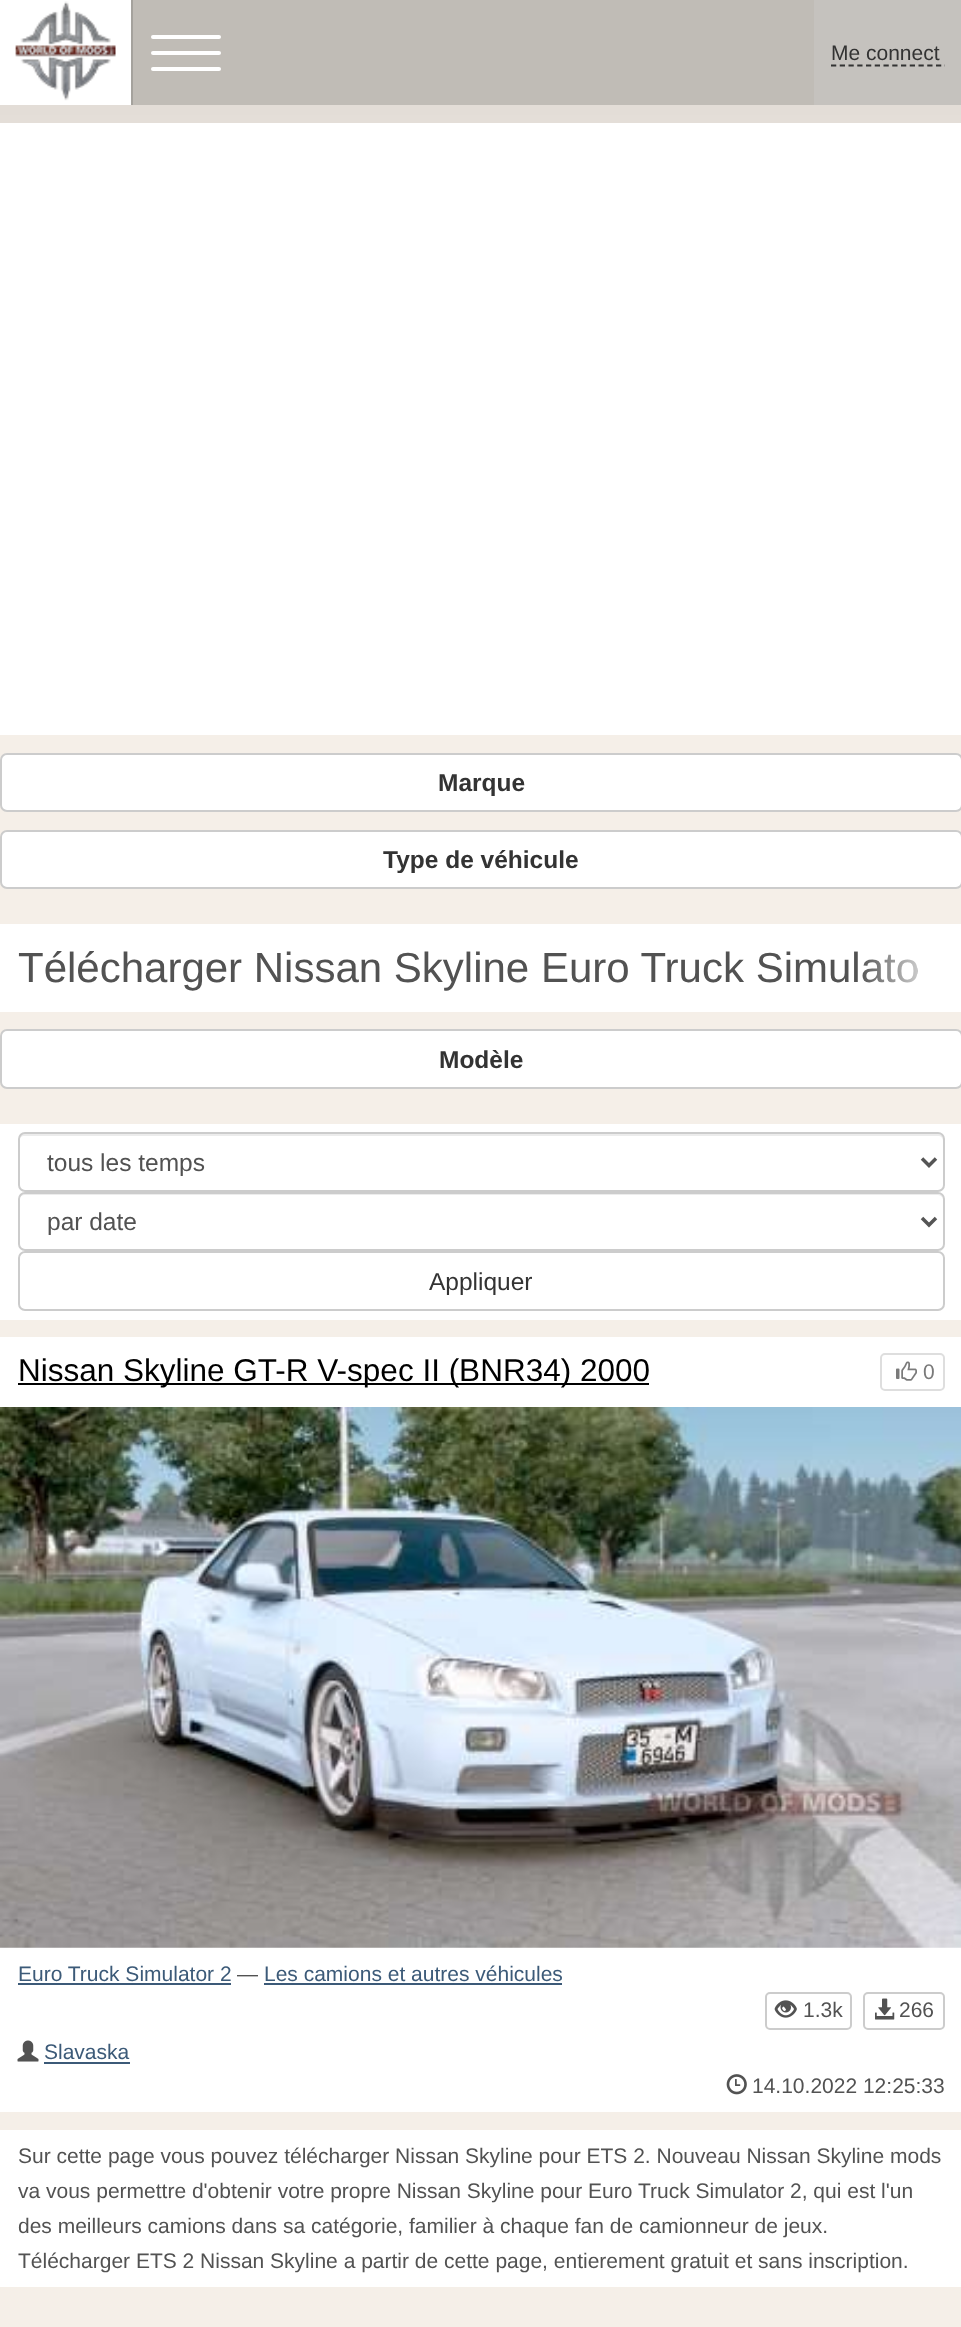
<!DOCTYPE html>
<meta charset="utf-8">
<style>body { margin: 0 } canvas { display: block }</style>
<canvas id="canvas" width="961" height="2327"></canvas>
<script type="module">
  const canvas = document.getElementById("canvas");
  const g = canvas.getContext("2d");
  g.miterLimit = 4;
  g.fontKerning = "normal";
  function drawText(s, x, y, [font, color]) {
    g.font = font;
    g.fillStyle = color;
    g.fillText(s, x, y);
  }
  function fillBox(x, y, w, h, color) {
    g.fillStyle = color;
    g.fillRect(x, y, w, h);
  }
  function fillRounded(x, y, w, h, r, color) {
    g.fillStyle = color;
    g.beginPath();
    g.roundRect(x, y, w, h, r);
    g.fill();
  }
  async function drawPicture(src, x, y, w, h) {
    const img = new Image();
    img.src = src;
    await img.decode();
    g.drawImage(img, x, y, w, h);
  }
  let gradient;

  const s1 = ["21px Liberation Sans", "#333333"];
  const s2 = ["bold 24.5px Liberation Sans", "#333333"];
  const s3 = ["42px Liberation Sans", "#525252"];
  const s4 = ["24.5px Liberation Sans", "#525252"];
  const s5 = ["24.5px Liberation Sans", "#333333"];
  const s6 = ["31.5px Liberation Sans", "#000000"];
  const s7 = ["21px Liberation Sans", "#7A7A7A"];
  const s8 = ["21px Liberation Sans", "#3C5A78"];
  const s9 = ["21px Liberation Sans", "#525252"];

  fillBox(0, 0, 961, 2327, "#F5EFE8");
  await drawPicture("pic1.png", 0, 105, 961, 18);
  fillBox(0, 0, 131, 105, "#FFFFFF");
  fillBox(131, 0, 2, 105, "#A5A29D");
  await drawPicture("pic2.png", 15, 1, 101, 100);
  fillBox(133, 0, 681, 105, "#C0BCB6");
  fillRounded(151, 35, 70, 4, 2, "#FFFFFF");
  fillRounded(151, 51, 70, 4, 2, "#FFFFFF");
  fillRounded(151, 67, 70, 4, 2, "#FFFFFF");
  fillBox(814, 0, 147, 105, "#C5C2BE");
  drawText("Me connect", 831, 60, s1);
  g.save();
  g.beginPath();
  g.rect(831, 18, 114, 70);
  g.clip();
  g.beginPath();
  g.moveTo(831, 65.5);
  g.lineTo(959, 65.5);
  g.strokeStyle = "#333333";
  g.lineWidth = 1.8;
  g.setLineDash([5.25, 3.5]);
  g.stroke();
  g.restore();
  fillBox(0, 123, 961, 612, "#FFFFFF");
  g.beginPath();
  g.roundRect(1, 754, 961, 57, 6);
  g.fill();
  g.strokeStyle = "#CCCCCC";
  g.lineWidth = 2;
  g.stroke();
  drawText("Marque", 438, 791, s2);
  g.fillStyle = "#FFFFFF";
  g.beginPath();
  g.roundRect(1, 831, 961, 57, 6);
  g.fill();
  g.stroke();
  drawText("Type de véhicule", 383, 868, s2);
  fillBox(0, 924, 961, 88, "#FFFFFF");
  drawText("Télécharger Nissan Skyline Euro Truck Simulato", 18, 982, s3);
  gradient = g.createLinearGradient(858, 968, 945, 968);
  gradient.addColorStop(0, "rgba(255, 255, 255, 0)");
  gradient.addColorStop(1, "#FFFFFF");
  g.fillStyle = gradient;
  g.fillRect(862, 954, 55, 29);
  g.fillStyle = "#FFFFFF";
  g.beginPath();
  g.roundRect(1, 1030, 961, 58, 6);
  g.fill();
  g.stroke();
  drawText("Modèle", 439, 1068, s2);
  fillBox(0, 1124, 961, 196, "#FFFFFF");
  g.fillStyle = "#ECECEC";
  g.beginPath();
  g.moveTo(24, 1136);
  g.lineTo(938, 1136);
  g.bezierCurveTo(941, 1136, 943, 1138, 943, 1141);
  g.lineTo(943, 1139);
  g.bezierCurveTo(943, 1136, 941, 1134, 938, 1134);
  g.lineTo(24, 1134);
  g.bezierCurveTo(21, 1134, 19, 1136, 19, 1139);
  g.lineTo(19, 1141);
  g.bezierCurveTo(19, 1138, 22, 1136, 24, 1136);
  g.closePath();
  g.fill();
  g.beginPath();
  g.roundRect(19, 1133, 925, 58, 6);
  g.stroke();
  g.beginPath();
  g.moveTo(922, 1158.5);
  g.lineTo(929, 1165.5);
  g.lineTo(936, 1158.5);
  g.strokeStyle = "#555555";
  g.lineWidth = 3.5;
  g.stroke();
  drawText("tous les temps", 47, 1171, s4);
  g.fillStyle = "#ECECEC";
  g.beginPath();
  g.moveTo(24, 1195);
  g.lineTo(938, 1195);
  g.bezierCurveTo(941, 1195, 943, 1198, 943, 1200);
  g.bezierCurveTo(943, 1197, 941, 1194, 938, 1194);
  g.lineTo(24, 1194);
  g.bezierCurveTo(21, 1194, 19, 1197, 19, 1200);
  g.bezierCurveTo(19, 1198, 22, 1195, 24, 1195);
  g.closePath();
  g.fill();
  g.beginPath();
  g.roundRect(19, 1193, 925, 57, 6);
  g.strokeStyle = "#CCCCCC";
  g.lineWidth = 2;
  g.stroke();
  g.beginPath();
  g.moveTo(922, 1218);
  g.lineTo(929, 1225);
  g.lineTo(936, 1218);
  g.strokeStyle = "#555555";
  g.lineWidth = 3.5;
  g.stroke();
  drawText("par date", 47, 1230, s4);
  g.beginPath();
  g.roundRect(19, 1252, 925, 58, 6);
  g.strokeStyle = "#CCCCCC";
  g.lineWidth = 2;
  g.stroke();
  drawText("Appliquer", 429, 1290, s5);
  fillBox(0, 1337, 961, 775, "#FFFFFF");
  fillBox(18, 1383, 631, 2, "#000000");
  drawText("Nissan Skyline GT-R V-spec II (BNR34) 2000", 18, 1381, s6);
  g.beginPath();
  g.roundRect(881, 1354, 63, 36, 4);
  g.strokeStyle = "#DEDEDE";
  g.stroke();
  await drawPicture("pic3.png", 896, 1361, 21, 20);
  drawText("0", 923, 1379, s7);
  await drawPicture("pic4.png", 0, 1407, 961, 541);
  drawText("Euro Truck Simulator 2", 18, 1981, s8);
  fillBox(18, 1983, 213, 2, "#3C5A78");
  drawText("—", 237, 1981, s9);
  drawText("Les camions et autres véhicules", 264, 1981, s8);
  fillBox(264, 1983, 298, 2, "#3C5A78");
  g.beginPath();
  g.roundRect(766, 1993, 85, 36, 4);
  g.strokeStyle = "#CCCCCC";
  g.stroke();
  await drawPicture("pic5.png", 774, 2000, 23, 18);
  drawText("1.3k", 803, 2017, s9);
  g.beginPath();
  g.roundRect(864, 1993, 80, 36, 4);
  g.stroke();
  await drawPicture("pic6.png", 875, 1998, 20, 22);
  drawText("266", 899, 2017, s9);
  await drawPicture("pic7.png", 17, 2040, 22, 22);
  drawText("Slavaska", 44, 2059, s8);
  fillBox(44, 2062, 86, 2, "#3C5A78");
  await drawPicture("pic8.png", 726, 2074, 21, 21);
  drawText("14.10.2022 12:25:33", 752, 2093, s9);
  fillBox(0, 2130, 961, 157, "#FFFFFF");
  drawText("Sur cette page vous pouvez télécharger Nissan Skyline pour ETS 2. Nouveau Nissan Skyline mods", 18, 2163, s9);
  drawText("va vous permettre d'obtenir votre propre Nissan Skyline pour Euro Truck Simulator 2, qui est l'un", 18, 2198, s9);
  drawText("des meilleurs camions dans sa catégorie, familier à chaque fan de camionneur de jeux.", 18, 2233, s9);
  drawText("Télécharger ETS 2 Nissan Skyline a partir de cette page, entierement gratuit et sans inscription.", 18, 2268, s9);
</script>
